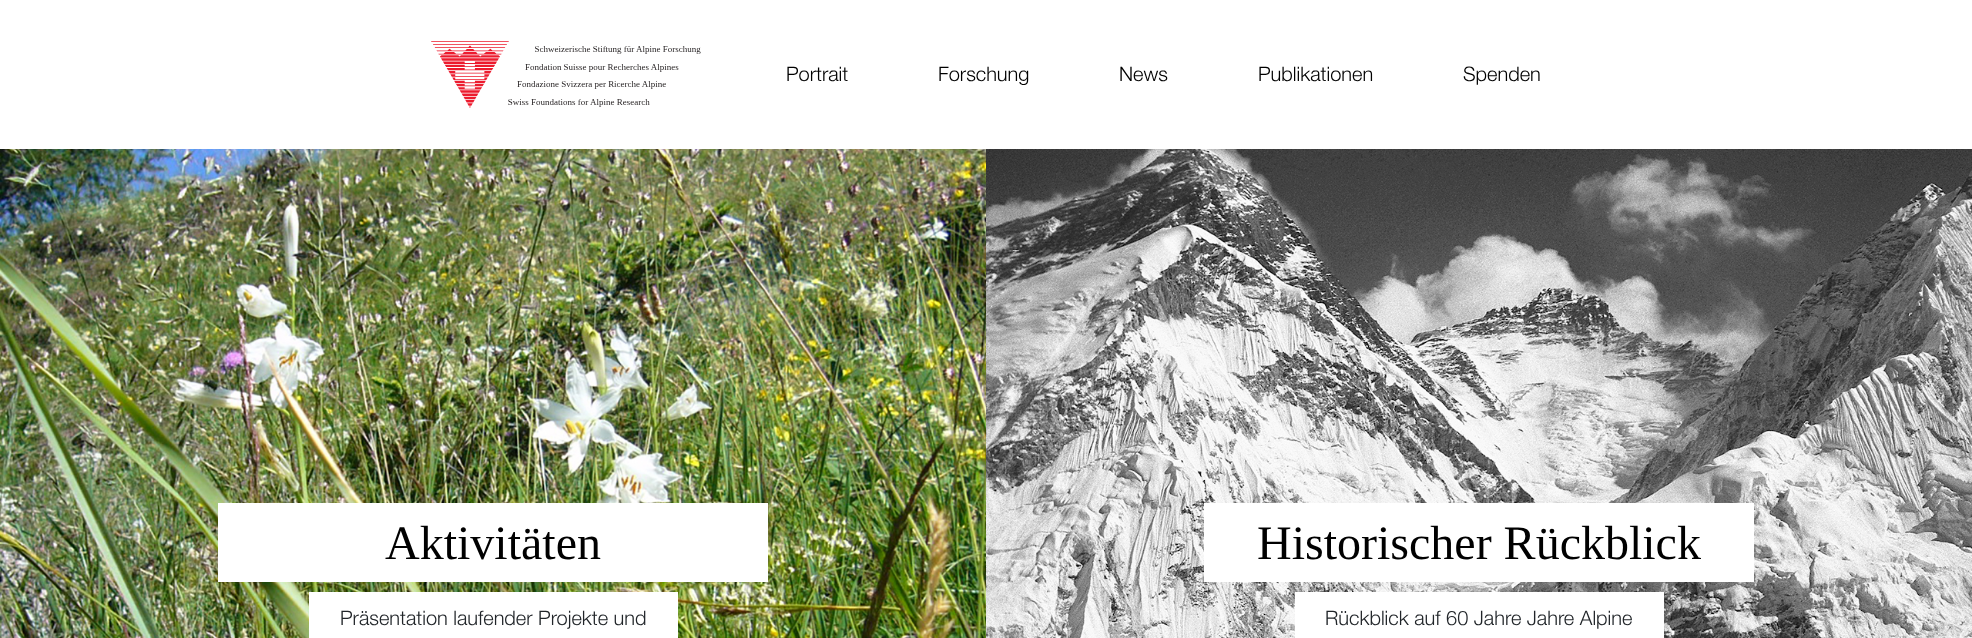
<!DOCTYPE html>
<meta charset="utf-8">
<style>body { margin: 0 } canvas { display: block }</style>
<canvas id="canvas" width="1972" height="638"></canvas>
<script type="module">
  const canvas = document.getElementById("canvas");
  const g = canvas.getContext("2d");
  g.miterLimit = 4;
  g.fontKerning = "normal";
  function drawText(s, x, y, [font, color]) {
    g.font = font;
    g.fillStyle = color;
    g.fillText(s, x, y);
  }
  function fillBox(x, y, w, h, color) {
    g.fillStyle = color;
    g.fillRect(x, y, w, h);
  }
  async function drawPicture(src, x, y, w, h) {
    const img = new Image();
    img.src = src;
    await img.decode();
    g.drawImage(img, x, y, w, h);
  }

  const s1 = ["300 20px Helvetica Neue", "#000000"];
  const s2 = ["48px Liberation Serif", "#000000"];
  const s3 = ["300 20px Helvetica Neue", "#212529"];

  fillBox(0, 0, 1972, 638, "#FFFFFF");
  await drawPicture("pic1.png", 431, 41, 270, 67);
  drawText("Portrait", 786, 81, s1);
  drawText("Forschung", 938, 81, s1);
  drawText("News", 1119, 81, s1);
  drawText("Publikationen", 1258, 81, s1);
  drawText("Spenden", 1463, 81, s1);
  await drawPicture("pic2.png", 0, 149, 986, 489);
  fillBox(218, 503, 550, 79, "#FFFFFF");
  drawText("Aktivitäten", 385, 559, s2);
  fillBox(309, 592, 369, 46, "#FFFFFF");
  drawText("Präsentation laufender Projekte und", 340, 625, s3);
  await drawPicture("pic3.png", 986, 149, 986, 489);
  fillBox(1204, 503, 550, 79, "#FFFFFF");
  drawText("Historischer Rückblick", 1257, 559, s2);
  fillBox(1295, 592, 369, 46, "#FFFFFF");
  drawText("Rückblick auf 60 Jahre Jahre Alpine", 1325, 625, s3);
</script>
